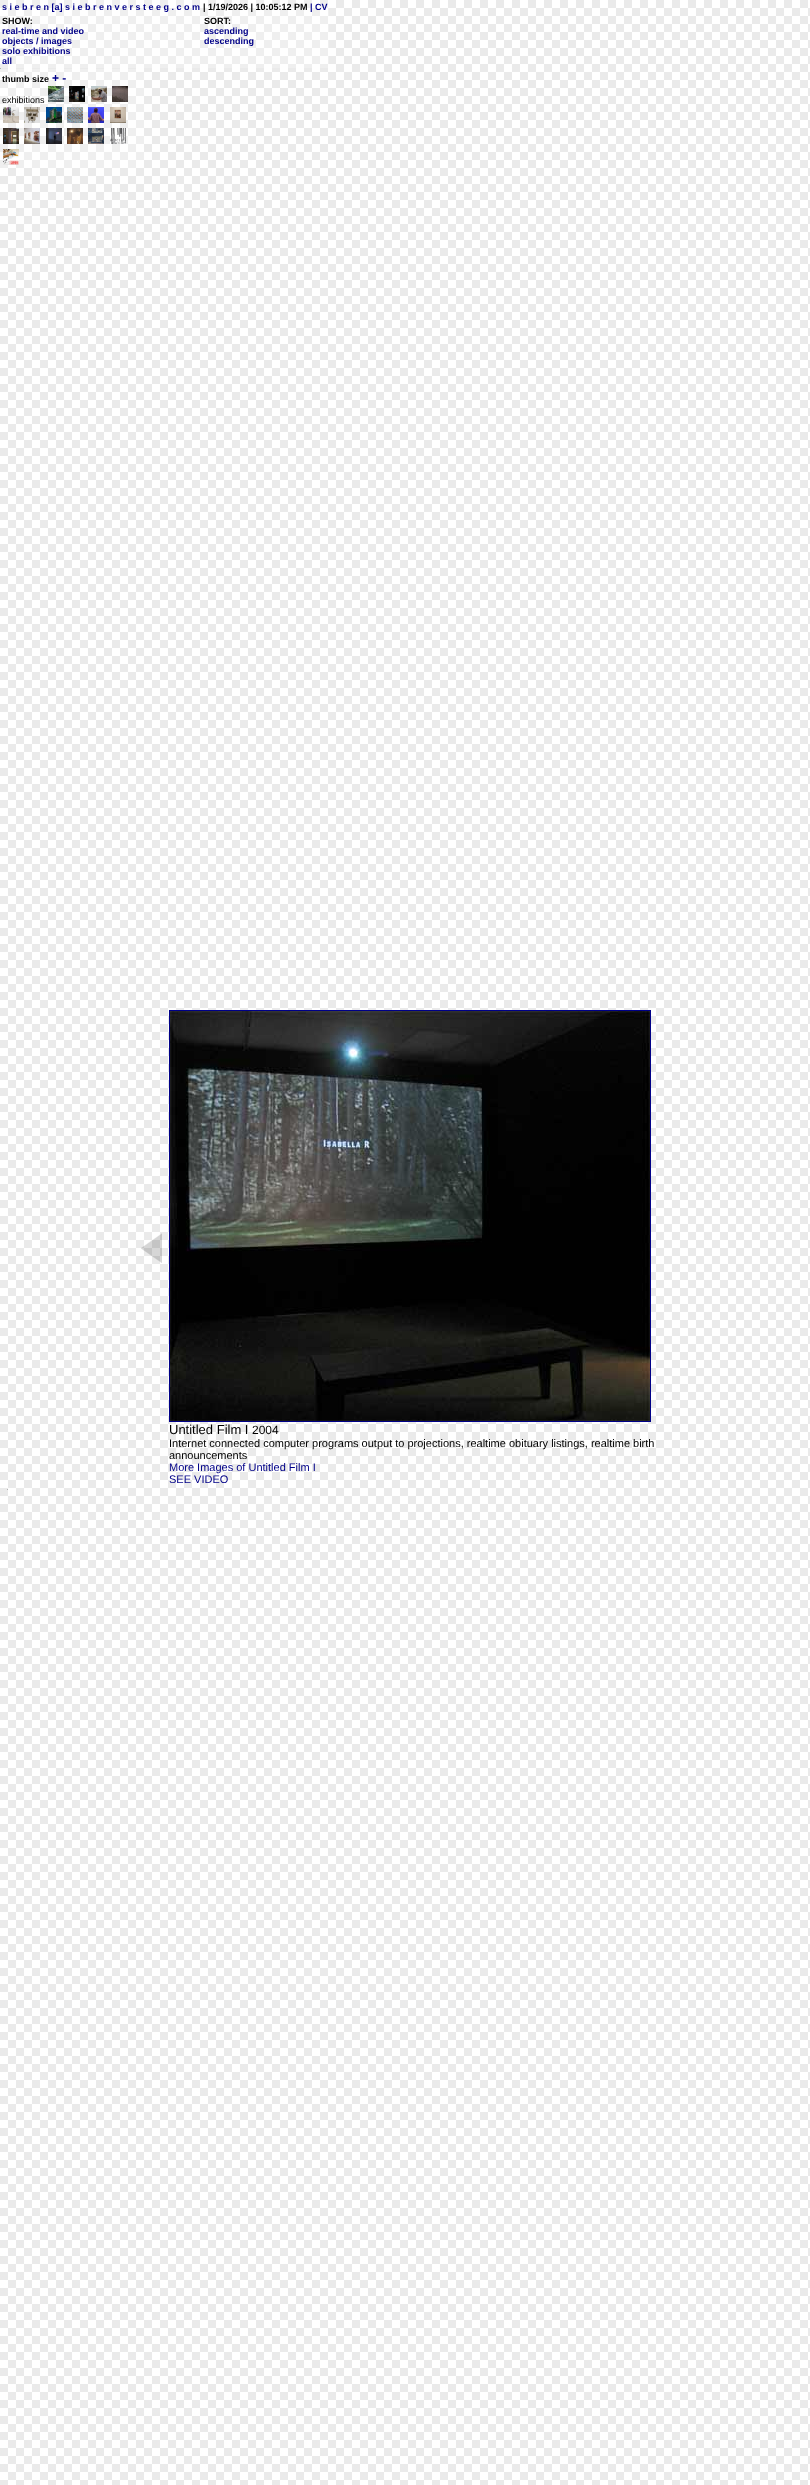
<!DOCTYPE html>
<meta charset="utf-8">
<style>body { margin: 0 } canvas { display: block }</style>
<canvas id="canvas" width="810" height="2485"></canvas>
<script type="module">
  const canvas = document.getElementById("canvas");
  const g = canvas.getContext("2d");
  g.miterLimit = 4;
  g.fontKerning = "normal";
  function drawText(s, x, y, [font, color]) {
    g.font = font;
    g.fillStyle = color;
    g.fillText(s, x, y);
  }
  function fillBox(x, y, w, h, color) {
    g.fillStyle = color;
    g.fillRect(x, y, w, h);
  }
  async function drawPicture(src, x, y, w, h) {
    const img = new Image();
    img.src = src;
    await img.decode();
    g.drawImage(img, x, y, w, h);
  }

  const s1 = ["bold 9px Liberation Sans", "#000088"];
  const s2 = ["bold 9px Liberation Sans", "#000000"];
  const s3 = ["bold 12px Liberation Sans", "#000088"];
  const s4 = ["9px Liberation Sans", "#000000"];
  const s5 = ["13px Liberation Sans", "#000000"];
  const s6 = ["12px Liberation Sans", "#000000"];
  const s7 = ["11px Liberation Sans", "#000000"];
  const s8 = ["11px Liberation Sans", "#000088"];

  fillBox(0, 0, 810, 2485, "#FFFFFF");
  await drawPicture("pic1.png", 0, 0, 810, 2485);
  fillBox(0, 0, 329, 68, "rgba(255, 255, 255, 0.24)");
  drawText("s i e b r e n [a] s i e b r e n v e r s t e e g . c o m", 2, 10, s1);
  drawText("| 1/19/2026 | 10:05:12 PM", 203, 10, s2);
  drawText("| CV", 310, 10, s1);
  drawText("SHOW:", 2, 24, s2);
  drawText("real-time and video", 2, 34, s1);
  drawText("objects / images", 2, 44, s1);
  drawText("solo exhibitions", 2, 54, s1);
  drawText("all", 2, 64, s1);
  drawText("SORT:", 204, 24, s2);
  drawText("ascending", 204, 34, s1);
  drawText("descending", 204, 44, s1);
  fillBox(0, 68, 1, 1, "#B2B2B2");
  fillBox(0, 69, 144, 99, "rgba(255, 255, 255, 0.24)");
  drawText("thumb size", 2, 82, s2);
  drawText("+ -", 52, 82, s3);
  drawText("exhibitions", 2, 103, s4);
  await drawPicture("pic2.png", 48, 86, 16, 16);
  await drawPicture("pic3.png", 69, 86, 16, 16);
  await drawPicture("pic4.png", 91, 86, 16, 16);
  await drawPicture("pic5.png", 112, 86, 16, 16);
  await drawPicture("pic6.png", 3, 107, 16, 16);
  await drawPicture("pic7.png", 24, 107, 16, 16);
  await drawPicture("pic8.png", 46, 107, 16, 16);
  await drawPicture("pic9.png", 67, 107, 16, 16);
  await drawPicture("pic10.png", 88, 107, 16, 16);
  await drawPicture("pic11.png", 110, 107, 16, 16);
  await drawPicture("pic12.png", 3, 128, 16, 16);
  await drawPicture("pic13.png", 24, 128, 16, 16);
  await drawPicture("pic14.png", 46, 128, 16, 16);
  await drawPicture("pic15.png", 67, 128, 16, 16);
  await drawPicture("pic16.png", 88, 128, 16, 16);
  await drawPicture("pic17.png", 110, 128, 16, 16);
  await drawPicture("pic18.png", 3, 149, 16, 16);
  await drawPicture("pic19.png", 141, 1233, 21, 30);
  g.strokeStyle = "#000088";
  g.strokeRect(169.5, 1010.5, 481, 411);
  await drawPicture("pic20.png", 170, 1011, 480, 410);
  drawText("Untitled Film I", 169, 1434, s5);
  drawText("2004", 252, 1434, s6);
  drawText("Internet connected computer programs output to projections, realtime obituary listings, realtime birth", 169, 1447, s7);
  drawText("announcements", 169, 1459, s7);
  drawText("More Images of Untitled Film I", 169, 1471, s8);
  drawText("SEE VIDEO", 169, 1483, s8);
  fillBox(7, 1489, 1, 1, "#B2B2B2");
</script>
